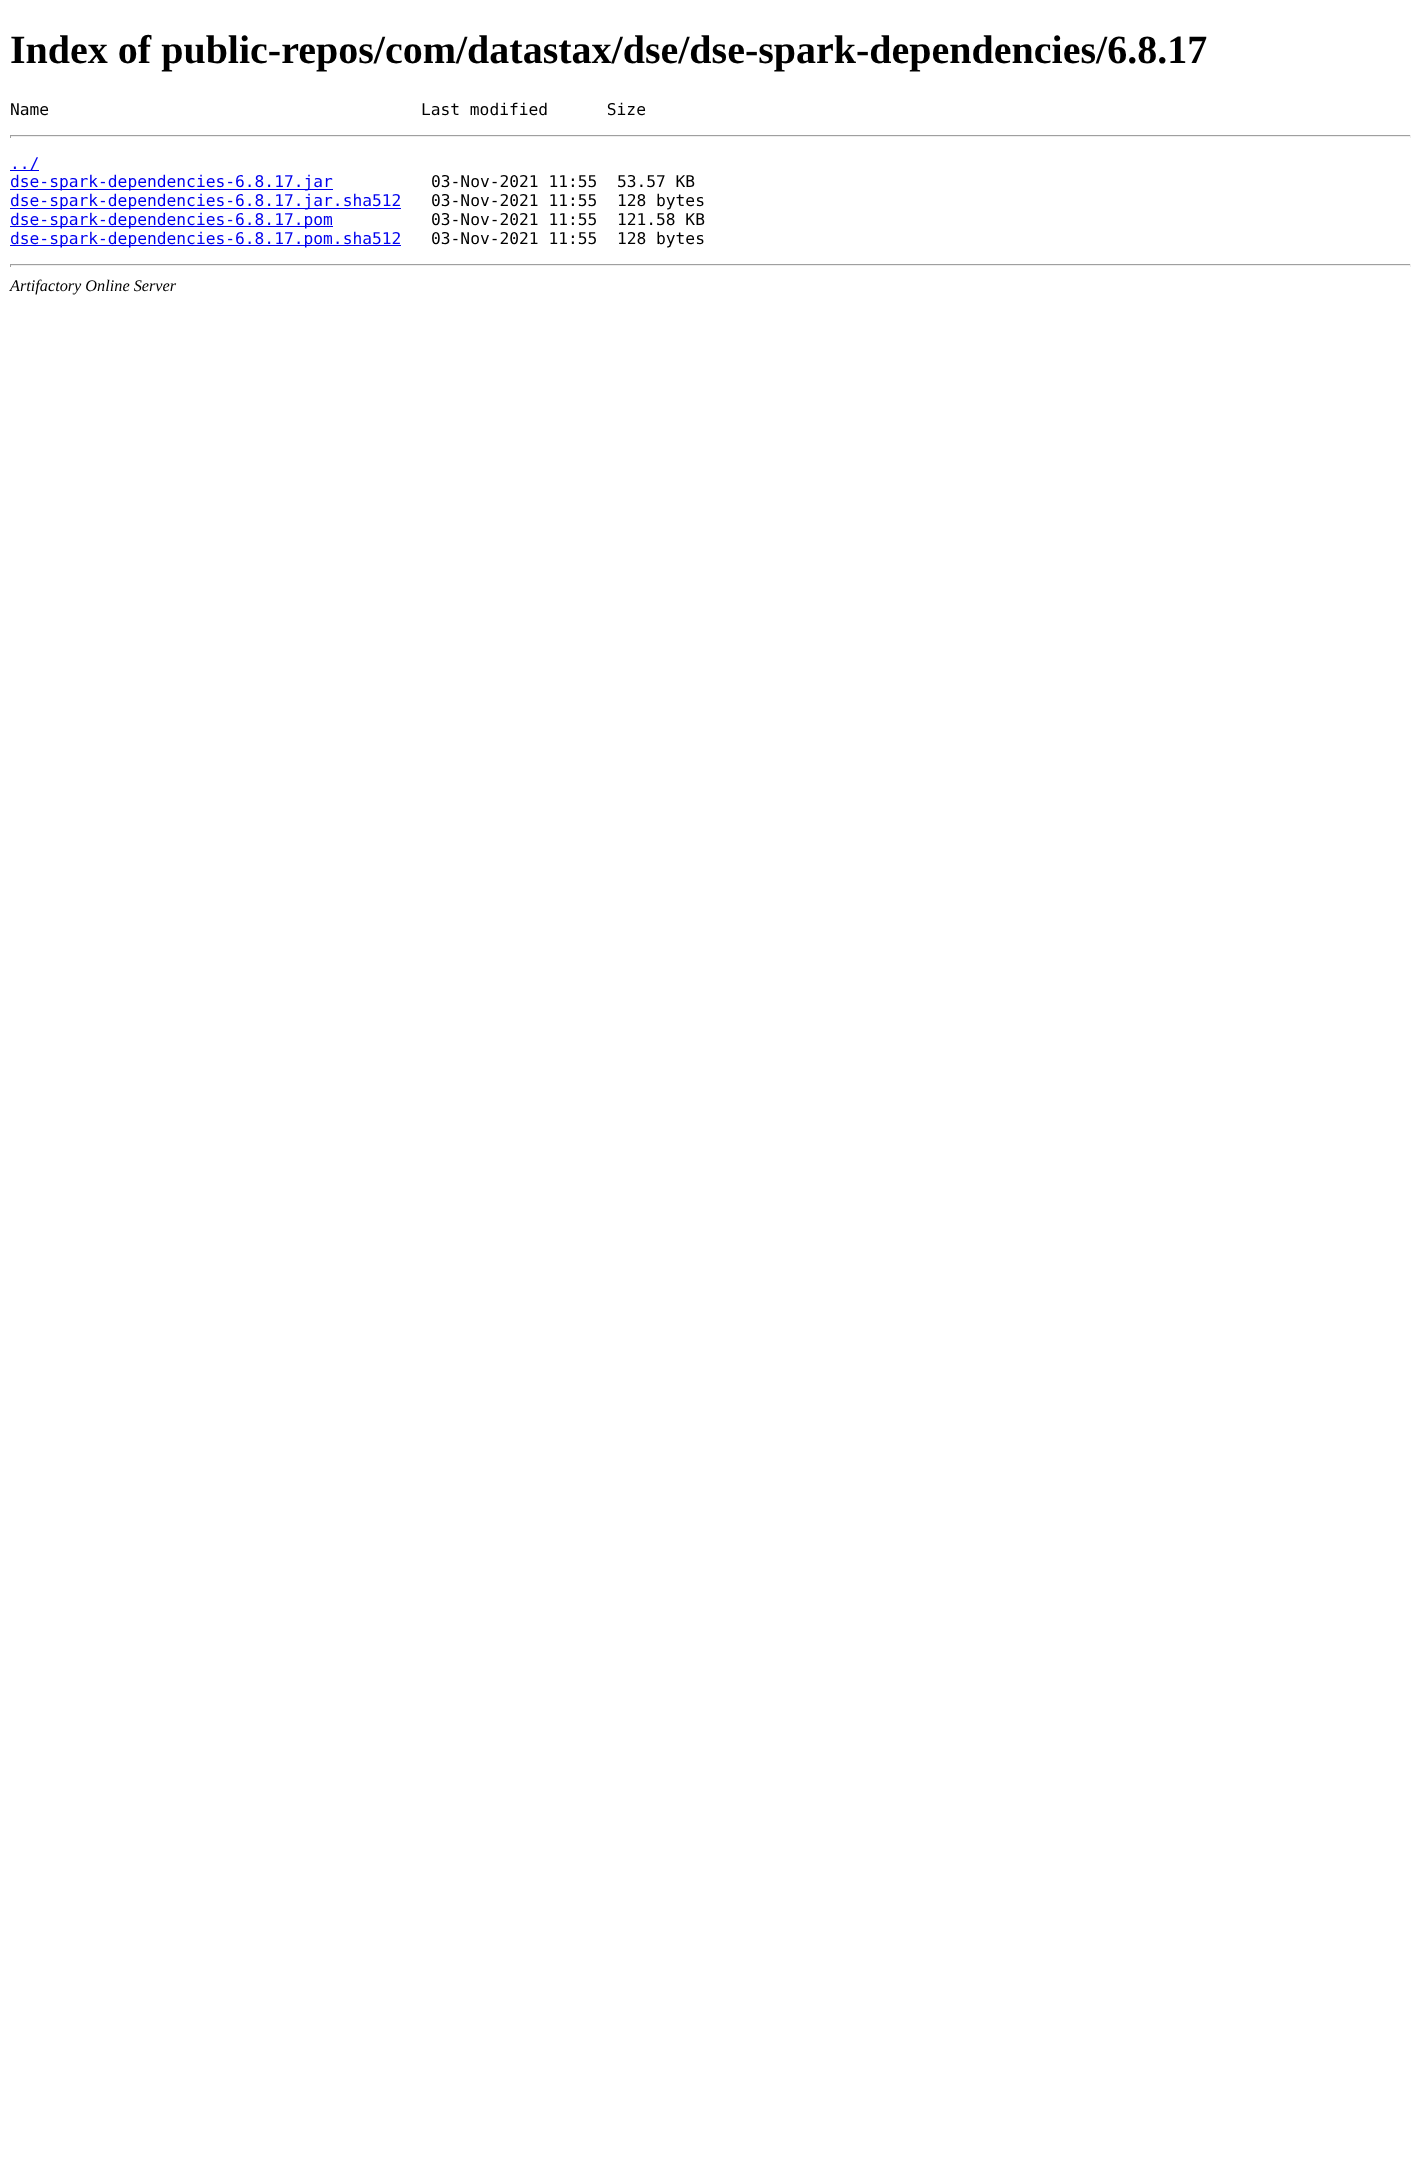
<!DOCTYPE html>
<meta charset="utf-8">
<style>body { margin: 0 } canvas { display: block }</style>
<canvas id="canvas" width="1421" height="2167"></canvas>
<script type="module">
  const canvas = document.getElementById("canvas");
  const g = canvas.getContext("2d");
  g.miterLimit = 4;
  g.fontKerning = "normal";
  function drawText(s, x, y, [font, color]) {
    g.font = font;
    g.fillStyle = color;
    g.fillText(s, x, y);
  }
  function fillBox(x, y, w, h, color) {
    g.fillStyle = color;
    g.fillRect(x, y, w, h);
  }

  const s1 = ["bold 40px Liberation Serif", "#000000"];
  const s2 = ["16.25px DejaVu Sans Mono", "#000000"];
  const s3 = ["16.25px DejaVu Sans Mono", "#0000EE"];
  const s4 = ["italic 16.25px Liberation Serif", "#000000"];

  fillBox(0, 0, 1421, 2167, "#FFFFFF");
  drawText("Index of public-repos/com/datastax/dse/dse-spark-dependencies/6.8.17", 10, 63, s1);
  drawText("Name                                      Last modified      Size", 10, 115, s2);
  fillBox(10, 135, 1401, 1, "#9F9F9F");
  fillBox(1410, 135, 1, 3, "#EEEEEE");
  fillBox(10, 136, 1401, 1, "#EEEEEE");
  fillBox(10, 135, 1, 3, "#9F9F9F");
  fillBox(10, 170, 29, 1, "#0000EE");
  drawText("../", 10, 169, s3);
  fillBox(10, 189, 323, 1, "#0000EE");
  drawText("dse-spark-dependencies-6.8.17.jar", 10, 187, s3);
  drawText("03-Nov-2021 11:55  53.57 KB", 431, 187, s2);
  fillBox(10, 208, 391, 1, "#0000EE");
  drawText("dse-spark-dependencies-6.8.17.jar.sha512", 10, 206, s3);
  drawText("03-Nov-2021 11:55  128 bytes", 431, 206, s2);
  fillBox(10, 226, 323, 1, "#0000EE");
  drawText("dse-spark-dependencies-6.8.17.pom", 10, 225, s3);
  drawText("03-Nov-2021 11:55  121.58 KB", 431, 225, s2);
  fillBox(10, 245, 391, 1, "#0000EE");
  drawText("dse-spark-dependencies-6.8.17.pom.sha512", 10, 244, s3);
  drawText("03-Nov-2021 11:55  128 bytes", 431, 244, s2);
  fillBox(10, 264, 1401, 1, "#9F9F9F");
  fillBox(1410, 264, 1, 3, "#EEEEEE");
  fillBox(10, 265, 1401, 1, "#EEEEEE");
  fillBox(10, 264, 1, 3, "#9F9F9F");
  drawText("Artifactory Online Server", 10, 291, s4);
</script>
